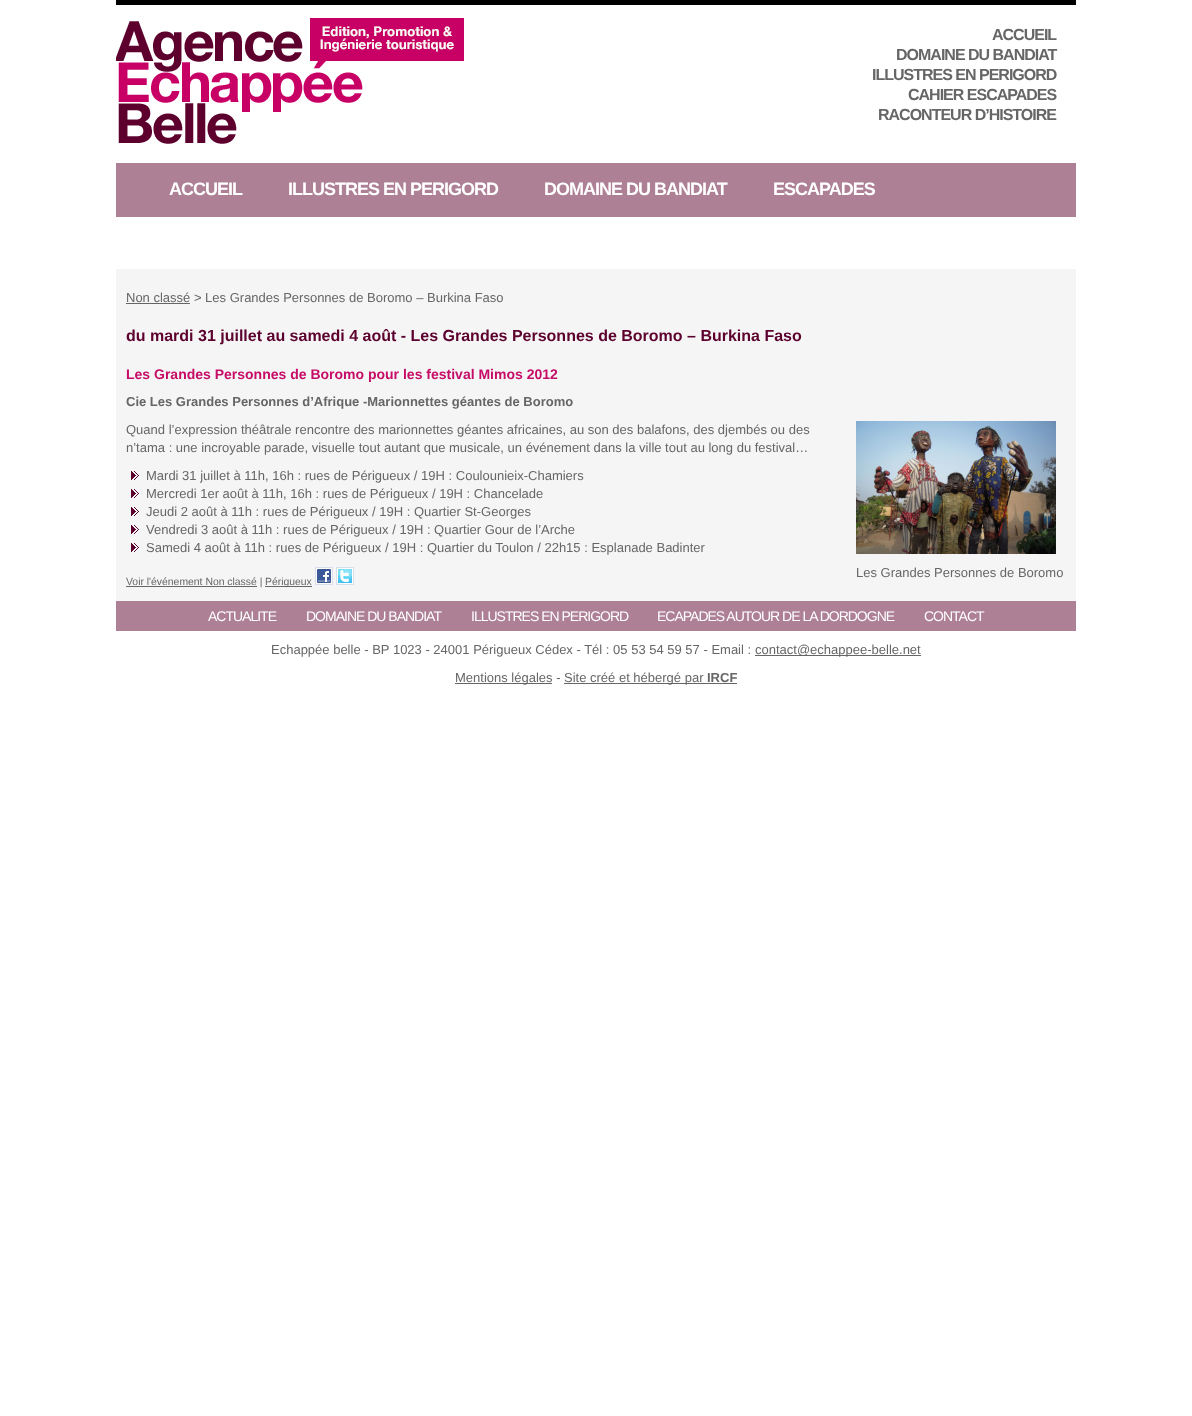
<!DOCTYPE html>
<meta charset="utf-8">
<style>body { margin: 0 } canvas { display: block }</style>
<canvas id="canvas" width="1192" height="1416"></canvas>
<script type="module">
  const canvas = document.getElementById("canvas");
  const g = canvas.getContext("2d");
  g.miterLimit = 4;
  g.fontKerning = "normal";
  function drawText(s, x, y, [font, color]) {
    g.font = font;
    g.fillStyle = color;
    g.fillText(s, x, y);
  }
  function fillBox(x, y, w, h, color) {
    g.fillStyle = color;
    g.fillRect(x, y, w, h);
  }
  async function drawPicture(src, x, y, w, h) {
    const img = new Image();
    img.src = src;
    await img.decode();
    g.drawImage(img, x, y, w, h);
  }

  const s1 = ["bold 16px Liberation Sans", "#666666"];
  const s2 = ["bold 18px Liberation Sans", "#FFFFFF"];
  const s3 = ["13px Liberation Sans", "#666666"];
  const s4 = ["bold 16px Liberation Sans", "#5C012D"];
  const s5 = ["bold 14px Liberation Sans", "#C60C66"];
  const s6 = ["bold 13px Liberation Sans", "#666666"];
  const s7 = ["10.4px Liberation Sans", "#666666"];
  const s8 = ["14px Liberation Sans", "#FFFFFF"];

  fillBox(0, 0, 1192, 1416, "#FFFFFF");
  fillBox(116, 0, 960, 5, "#000000");
  await drawPicture("pic1.png", 116, 18, 348, 126);
  g.letterSpacing = "-1px";
  drawText("ACCUEIL", 992, 40, s1);
  drawText("DOMAINE DU BANDIAT", 896, 60, s1);
  drawText("ILLUSTRES EN PERIGORD", 872, 80, s1);
  drawText("CAHIER ESCAPADES", 908, 100, s1);
  drawText("RACONTEUR D’HISTOIRE", 878, 120, s1);
  fillBox(116, 163, 960, 54, "#AD8096");
  drawText("ACCUEIL", 169, 195, s2);
  drawText("ILLUSTRES EN PERIGORD", 288, 195, s2);
  drawText("DOMAINE DU BANDIAT", 544, 195, s2);
  drawText("ESCAPADES", 773, 195, s2);
  fillBox(116, 269, 960, 332, "#F5F5F5");
  g.letterSpacing = "0px";
  drawText("Non classé > Les Grandes Personnes de Boromo – Burkina Faso", 126, 302, s3);
  fillBox(126, 303, 64, 1, "#666666");
  drawText("du mardi 31 juillet au samedi 4 août - Les Grandes Personnes de Boromo – Burkina Faso", 126, 341, s4);
  drawText("Les Grandes Personnes de Boromo pour les festival Mimos 2012", 126, 379, s5);
  drawText("Cie Les Grandes Personnes d’Afrique -Marionnettes géantes de Boromo", 126, 406, s6);
  drawText("Quand l’expression théâtrale rencontre des marionnettes géantes africaines, au son des balafons, des djembés ou des", 126, 434, s3);
  drawText("n’tama : une incroyable parade, visuelle tout autant que musicale, un événement dans la ville tout au long du festival…", 126, 452, s3);
  await drawPicture("pic2.png", 131, 471, 8, 9);
  drawText("Mardi 31 juillet à 11h, 16h : rues de Périgueux / 19H : Coulounieix-Chamiers", 146, 480, s3);
  await drawPicture("pic2.png", 131, 489, 8, 9);
  drawText("Mercredi 1er août à 11h, 16h : rues de Périgueux / 19H : Chancelade", 146, 498, s3);
  await drawPicture("pic2.png", 131, 507, 8, 9);
  drawText("Jeudi 2 août à 11h : rues de Périgueux / 19H : Quartier St-Georges", 146, 516, s3);
  await drawPicture("pic2.png", 131, 525, 8, 9);
  drawText("Vendredi 3 août à 11h : rues de Périgueux / 19H : Quartier Gour de l’Arche", 146, 534, s3);
  await drawPicture("pic2.png", 131, 543, 8, 9);
  drawText("Samedi 4 août à 11h : rues de Périgueux / 19H : Quartier du Toulon / 22h15 : Esplanade Badinter", 146, 552, s3);
  await drawPicture("pic3.png", 856, 421, 200, 133);
  drawText("Les Grandes Personnes de Boromo", 856, 577, s3);
  fillBox(126, 586, 131, 1, "#666666");
  drawText("Voir l'événement Non classé |", 126, 585, s7);
  fillBox(265, 586, 47, 1, "#666666");
  drawText("Périgueux", 265, 585, s7);
  await drawPicture("pic4.png", 316, 568, 16, 16);
  g.strokeStyle = "#D8DFEA";
  g.strokeRect(315.5, 567.5, 17, 17);
  await drawPicture("pic5.png", 337, 568, 16, 16);
  g.strokeRect(336.5, 567.5, 17, 17);
  fillBox(116, 601, 960, 30, "#AD8096");
  g.letterSpacing = "-1px";
  drawText("ACTUALITE", 208, 621, s8);
  drawText("DOMAINE DU BANDIAT", 306, 621, s8);
  drawText("ILLUSTRES EN PERIGORD", 471, 621, s8);
  drawText("ECAPADES AUTOUR DE LA DORDOGNE", 657, 621, s8);
  drawText("CONTACT", 924, 621, s8);
  g.letterSpacing = "0px";
  drawText("Echappée belle - BP 1023 - 24001 Périgueux Cédex - Tél : 05 53 54 59 57 - Email :", 271, 654, s3);
  fillBox(755, 655, 166, 1, "#666666");
  drawText("contact@echappee-belle.net", 755, 654, s3);
  fillBox(455, 683, 97, 1, "#666666");
  drawText("Mentions légales -", 455, 682, s3);
  fillBox(564, 683, 173, 1, "#666666");
  drawText("Site créé et hébergé par", 564, 682, s3);
  drawText("IRCF", 707, 682, s6);
</script>
